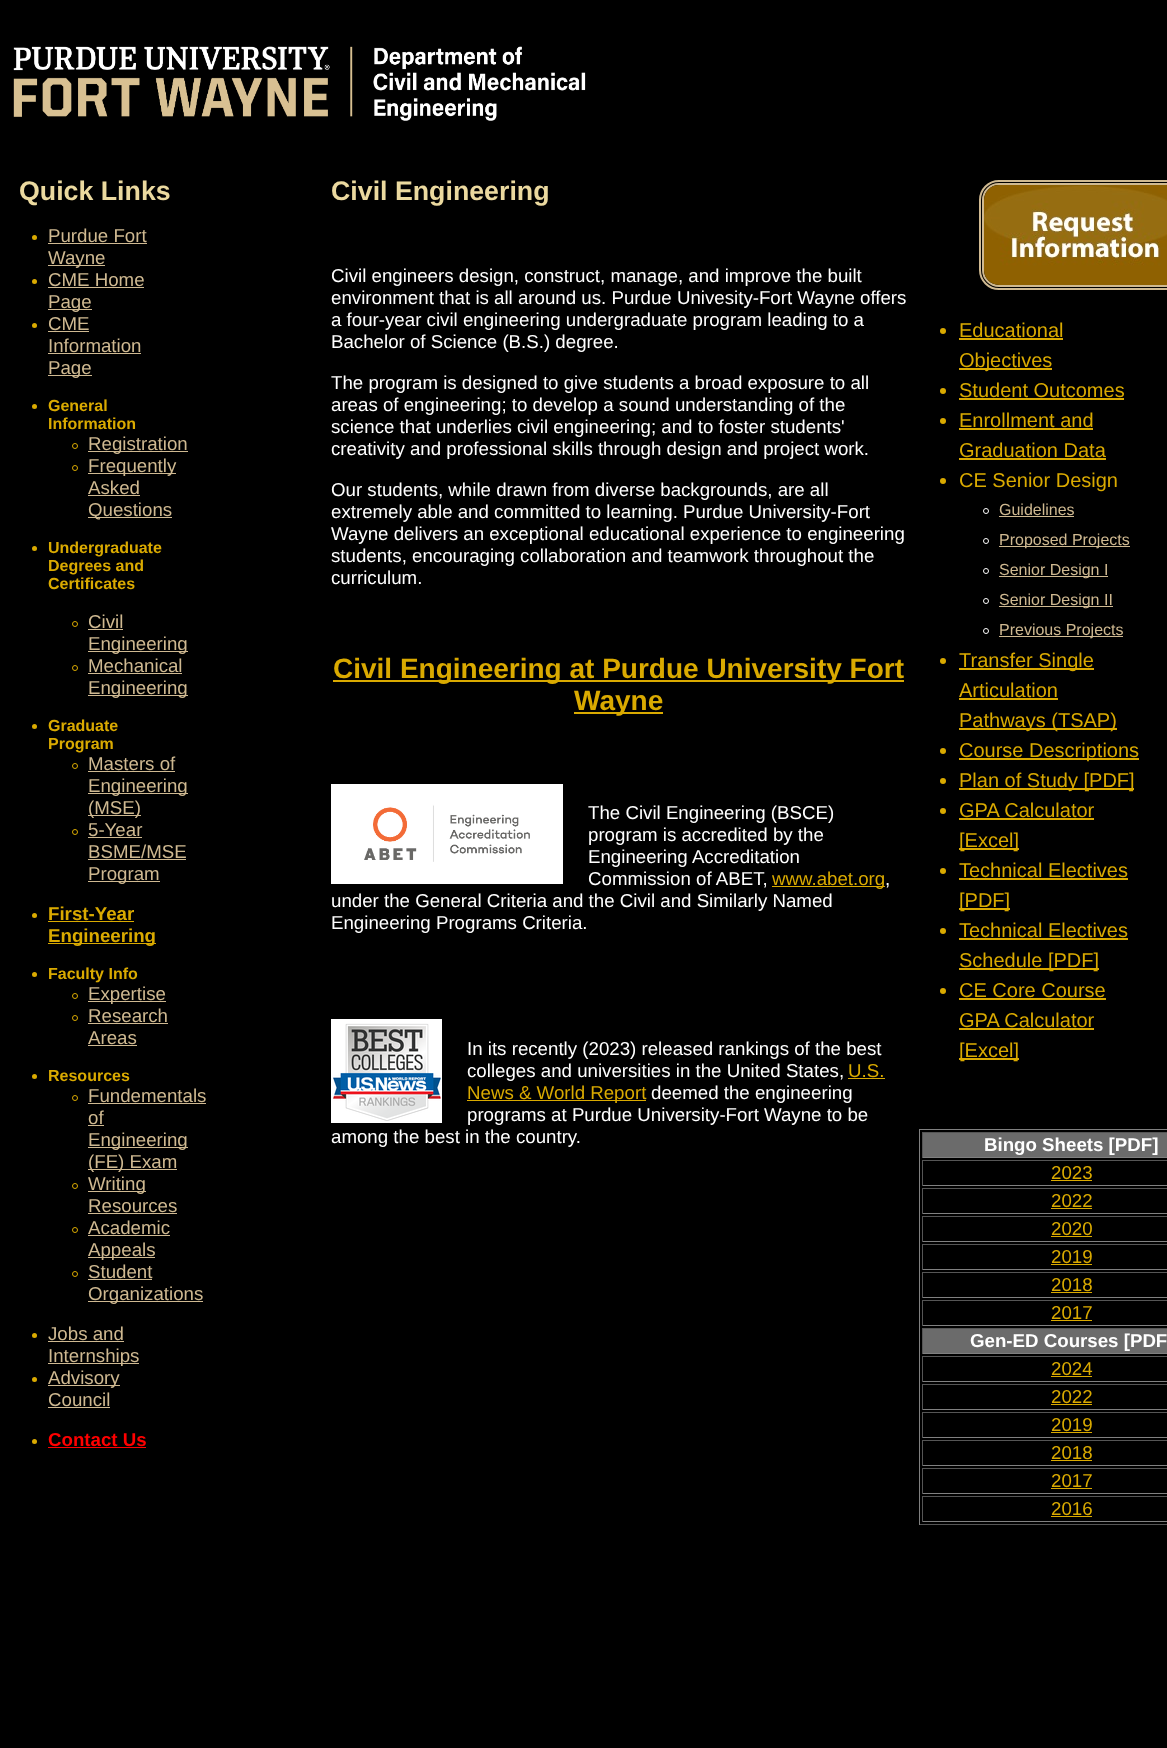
<!DOCTYPE html>
<meta charset="utf-8">
<style>body { margin: 0 } canvas { display: block }</style>
<canvas id="canvas" width="1167" height="1748"></canvas>
<script type="module">
  const canvas = document.getElementById("canvas");
  const g = canvas.getContext("2d");
  g.miterLimit = 4;
  g.fontKerning = "normal";
  function drawText(s, x, y, [font, color]) {
    g.font = font;
    g.fillStyle = color;
    g.fillText(s, x, y);
  }
  function fillBox(x, y, w, h, color) {
    g.fillStyle = color;
    g.fillRect(x, y, w, h);
  }
  async function drawPicture(src, x, y, w, h) {
    const img = new Image();
    img.src = src;
    await img.decode();
    g.drawImage(img, x, y, w, h);
  }

  const s1 = ["bold 26.75px Liberation Sans", "#EBD99F"];
  const s2 = ["18.7px Liberation Sans", "#CFB991"];
  const s3 = ["bold 16px Liberation Sans", "#DAAA00"];
  const s4 = ["bold 18.7px Liberation Sans", "#DAAA00"];
  const s5 = ["bold 18.7px Liberation Sans", "#FF0000"];
  const s6 = ["18.7px Liberation Sans", "#FFFFFF"];
  const s7 = ["bold 28px Liberation Sans", "#DAAA00"];
  const s8 = ["18.7px Liberation Sans", "#DAAA00"];
  const s9 = ["20px Liberation Sans", "#DAAA00"];
  const s10 = ["16px Liberation Sans", "#CFB991"];
  const s11 = ["bold 18.7px Liberation Sans", "#FFFFFF"];

  fillBox(0, 0, 1167, 1748, "#000000");
  await drawPicture("pic1.png", 13, 46, 573, 75);
  drawText("Quick Links", 19, 200, s1);
  g.fillStyle = "#DAAA00";
  g.beginPath();
  g.arc(34.5, 237.5, 2.5, 0, Math.PI * 2);
  g.fill();
  drawText("Purdue Fort", 48, 242, s2);
  fillBox(48, 243, 99, 1, "#CFB991");
  fillBox(48, 265, 57, 1, "#CFB991");
  drawText("Wayne", 48, 264, s2);
  g.fillStyle = "#DAAA00";
  g.beginPath();
  g.arc(34.5, 281.5, 2.5, 0, Math.PI * 2);
  g.fill();
  drawText("CME Home", 48, 286, s2);
  fillBox(48, 287, 96, 1, "#CFB991");
  fillBox(48, 309, 44, 1, "#CFB991");
  drawText("Page", 48, 308, s2);
  g.fillStyle = "#DAAA00";
  g.beginPath();
  g.arc(34.5, 325.5, 2.5, 0, Math.PI * 2);
  g.fill();
  drawText("CME", 48, 330, s2);
  fillBox(48, 331, 41, 1, "#CFB991");
  drawText("Information", 48, 352, s2);
  fillBox(48, 353, 93, 1, "#CFB991");
  fillBox(48, 375, 44, 1, "#CFB991");
  drawText("Page", 48, 374, s2);
  g.fillStyle = "#DAAA00";
  g.beginPath();
  g.arc(34.5, 406.5, 2.5, 0, Math.PI * 2);
  g.fill();
  drawText("General", 48, 411, s3);
  drawText("Information", 48, 429, s3);
  g.beginPath();
  g.arc(75, 446, 2.5, 0, Math.PI * 2);
  g.strokeStyle = "#DAAA00";
  g.stroke();
  fillBox(88, 451, 100, 1, "#CFB991");
  drawText("Registration", 88, 450, s2);
  g.beginPath();
  g.arc(75, 468, 2.5, 0, Math.PI * 2);
  g.stroke();
  fillBox(88, 473, 88, 1, "#CFB991");
  drawText("Frequently", 88, 472, s2);
  drawText("Asked", 88, 494, s2);
  fillBox(88, 495, 52, 1, "#CFB991");
  fillBox(88, 517, 84, 1, "#CFB991");
  drawText("Questions", 88, 516, s2);
  g.fillStyle = "#DAAA00";
  g.beginPath();
  g.arc(34.5, 548.5, 2.5, 0, Math.PI * 2);
  g.fill();
  drawText("Undergraduate", 48, 553, s3);
  drawText("Degrees and", 48, 571, s3);
  drawText("Certificates", 48, 589, s3);
  g.beginPath();
  g.arc(75, 624, 2.5, 0, Math.PI * 2);
  g.stroke();
  drawText("Civil", 88, 628, s2);
  fillBox(88, 629, 35, 1, "#CFB991");
  fillBox(88, 651, 100, 1, "#CFB991");
  drawText("Engineering", 88, 650, s2);
  g.beginPath();
  g.arc(75, 668, 2.5, 0, Math.PI * 2);
  g.stroke();
  drawText("Mechanical", 88, 672, s2);
  fillBox(88, 673, 94, 1, "#CFB991");
  fillBox(88, 695, 100, 1, "#CFB991");
  drawText("Engineering", 88, 694, s2);
  g.fillStyle = "#DAAA00";
  g.beginPath();
  g.arc(34.5, 726.5, 2.5, 0, Math.PI * 2);
  g.fill();
  drawText("Graduate", 48, 731, s3);
  drawText("Program", 48, 749, s3);
  g.beginPath();
  g.arc(75, 766, 2.5, 0, Math.PI * 2);
  g.stroke();
  drawText("Masters of", 88, 770, s2);
  fillBox(88, 771, 87, 1, "#CFB991");
  fillBox(88, 793, 100, 1, "#CFB991");
  drawText("Engineering", 88, 792, s2);
  fillBox(88, 815, 53, 1, "#CFB991");
  drawText("(MSE)", 88, 814, s2);
  g.beginPath();
  g.arc(75, 832, 2.5, 0, Math.PI * 2);
  g.stroke();
  drawText("5-Year", 88, 836, s2);
  fillBox(88, 837, 54, 1, "#CFB991");
  drawText("BSME/MSE", 88, 858, s2);
  fillBox(88, 859, 98, 1, "#CFB991");
  fillBox(88, 881, 72, 1, "#CFB991");
  drawText("Program", 88, 880, s2);
  g.fillStyle = "#DAAA00";
  g.beginPath();
  g.arc(34.5, 915.5, 2.5, 0, Math.PI * 2);
  g.fill();
  drawText("First-Year", 48, 920, s4);
  fillBox(48, 921, 86, 1, "#DAAA00");
  fillBox(48, 943, 108, 1, "#DAAA00");
  drawText("Engineering", 48, 942, s4);
  g.beginPath();
  g.arc(34.5, 974.5, 2.5, 0, Math.PI * 2);
  g.fill();
  drawText("Faculty Info", 48, 979, s3);
  g.beginPath();
  g.arc(75, 996, 2.5, 0, Math.PI * 2);
  g.stroke();
  fillBox(88, 1001, 78, 1, "#CFB991");
  drawText("Expertise", 88, 1000, s2);
  g.beginPath();
  g.arc(75, 1018, 2.5, 0, Math.PI * 2);
  g.stroke();
  drawText("Research", 88, 1022, s2);
  fillBox(88, 1023, 80, 1, "#CFB991");
  drawText("Areas", 88, 1044, s2);
  fillBox(88, 1045, 49, 1, "#CFB991");
  g.fillStyle = "#DAAA00";
  g.beginPath();
  g.arc(34.5, 1076.5, 2.5, 0, Math.PI * 2);
  g.fill();
  drawText("Resources", 48, 1081, s3);
  g.beginPath();
  g.arc(75, 1098, 2.5, 0, Math.PI * 2);
  g.stroke();
  drawText("Fundementals", 88, 1102, s2);
  fillBox(88, 1103, 118, 1, "#CFB991");
  drawText("of", 88, 1124, s2);
  fillBox(88, 1125, 16, 1, "#CFB991");
  fillBox(88, 1147, 100, 1, "#CFB991");
  drawText("Engineering", 88, 1146, s2);
  fillBox(88, 1169, 89, 1, "#CFB991");
  drawText("(FE) Exam", 88, 1168, s2);
  g.beginPath();
  g.arc(75, 1186, 2.5, 0, Math.PI * 2);
  g.stroke();
  fillBox(88, 1191, 58, 1, "#CFB991");
  drawText("Writing", 88, 1190, s2);
  drawText("Resources", 88, 1212, s2);
  fillBox(88, 1213, 89, 1, "#CFB991");
  g.beginPath();
  g.arc(75, 1230, 2.5, 0, Math.PI * 2);
  g.stroke();
  drawText("Academic", 88, 1234, s2);
  fillBox(88, 1235, 82, 1, "#CFB991");
  fillBox(88, 1257, 67, 1, "#CFB991");
  drawText("Appeals", 88, 1256, s2);
  g.beginPath();
  g.arc(75, 1274, 2.5, 0, Math.PI * 2);
  g.stroke();
  drawText("Student", 88, 1278, s2);
  fillBox(88, 1279, 64, 1, "#CFB991");
  fillBox(88, 1301, 115, 1, "#CFB991");
  drawText("Organizations", 88, 1300, s2);
  g.fillStyle = "#DAAA00";
  g.beginPath();
  g.arc(34.5, 1335.5, 2.5, 0, Math.PI * 2);
  g.fill();
  drawText("Jobs and", 48, 1340, s2);
  fillBox(48, 1341, 76, 1, "#CFB991");
  fillBox(48, 1363, 91, 1, "#CFB991");
  drawText("Internships", 48, 1362, s2);
  g.fillStyle = "#DAAA00";
  g.beginPath();
  g.arc(34.5, 1379.5, 2.5, 0, Math.PI * 2);
  g.fill();
  fillBox(48, 1385, 72, 1, "#CFB991");
  drawText("Advisory", 48, 1384, s2);
  drawText("Council", 48, 1406, s2);
  fillBox(48, 1407, 62, 1, "#CFB991");
  g.fillStyle = "#DAAA00";
  g.beginPath();
  g.arc(34.5, 1441.5, 2.5, 0, Math.PI * 2);
  g.fill();
  drawText("Contact Us", 48, 1446, s5);
  fillBox(48, 1447, 98, 1, "#FF0000");
  drawText("Civil Engineering", 331, 200, s1);
  drawText("Civil engineers design, construct, manage, and improve the built", 331, 282, s6);
  drawText("environment that is all around us. Purdue Univesity-Fort Wayne offers", 331, 304, s6);
  drawText("a four-year civil engineering undergraduate program leading to a", 331, 326, s6);
  drawText("Bachelor of Science (B.S.) degree.", 331, 348, s6);
  drawText("The program is designed to give students a broad exposure to all", 331, 389, s6);
  drawText("areas of engineering; to develop a sound understanding of the", 331, 411, s6);
  drawText("science that underlies civil engineering; and to foster students'", 331, 433, s6);
  drawText("creativity and professional skills through design and project work.", 331, 455, s6);
  drawText("Our students, while drawn from diverse backgrounds, are all", 331, 496, s6);
  drawText("extremely able and committed to learning. Purdue University-Fort", 331, 518, s6);
  drawText("Wayne delivers an exceptional educational experience to engineering", 331, 540, s6);
  drawText("students, encouraging collaboration and teamwork throughout the", 331, 562, s6);
  drawText("curriculum.", 331, 584, s6);
  fillBox(333, 680, 571, 2, "#DAAA00");
  drawText("Civil Engineering at Purdue University Fort", 333, 678, s7);
  fillBox(574, 712, 89, 2, "#DAAA00");
  drawText("Wayne", 574, 710, s7);
  await drawPicture("pic2.png", 331, 784, 232, 100);
  drawText("The Civil Engineering (BSCE)", 588, 819, s6);
  drawText("program is accredited by the", 588, 841, s6);
  drawText("Engineering Accreditation", 588, 863, s6);
  drawText("Commission of ABET,", 588, 885, s6);
  fillBox(772, 886, 113, 1, "#DAAA00");
  drawText("www.abet.org", 772, 885, s8);
  drawText(",", 885, 885, s6);
  drawText("under the General Criteria and the Civil and Similarly Named", 331, 907, s6);
  drawText("Engineering Programs Criteria.", 331, 929, s6);
  await drawPicture("pic3.png", 331, 1019, 111, 104);
  drawText("In its recently (2023) released rankings of the best", 467, 1055, s6);
  drawText("colleges and universities in the United States,", 467, 1077, s6);
  drawText("U.S.", 848, 1077, s8);
  fillBox(848, 1078, 37, 1, "#DAAA00");
  fillBox(467, 1100, 179, 1, "#DAAA00");
  drawText("News & World Report", 467, 1099, s8);
  drawText("deemed the engineering", 651, 1099, s6);
  drawText("programs at Purdue University-Fort Wayne to be", 467, 1121, s6);
  drawText("among the best in the country.", 331, 1143, s6);
  g.beginPath();
  g.roundRect(980, 181, 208, 108, 19);
  g.strokeStyle = "#CFB991";
  g.lineWidth = 2;
  g.stroke();
  g.beginPath();
  g.roundRect(983, 184, 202, 102, 16);
  g.stroke();
  await drawPicture("pic4.png", 984, 185, 183, 100);
  g.fillStyle = "#DAAA00";
  g.beginPath();
  g.arc(943, 331, 3, 0, Math.PI * 2);
  g.fill();
  drawText("Educational", 959, 337, s9);
  fillBox(959, 338, 104, 2, "#DAAA00");
  fillBox(959, 368, 93, 2, "#DAAA00");
  drawText("Objectives", 959, 367, s9);
  g.beginPath();
  g.arc(943, 391, 3, 0, Math.PI * 2);
  g.fill();
  drawText("Student Outcomes", 959, 397, s9);
  fillBox(959, 398, 165, 2, "#DAAA00");
  g.beginPath();
  g.arc(943, 421, 3, 0, Math.PI * 2);
  g.fill();
  drawText("Enrollment and", 959, 427, s9);
  fillBox(959, 428, 134, 2, "#DAAA00");
  drawText("Graduation Data", 959, 457, s9);
  fillBox(959, 458, 147, 2, "#DAAA00");
  g.beginPath();
  g.arc(943, 481, 3, 0, Math.PI * 2);
  g.fill();
  drawText("CE Senior Design", 959, 487, s9);
  g.beginPath();
  g.arc(986, 511, 2.5, 0, Math.PI * 2);
  g.strokeStyle = "#FFFFFF";
  g.lineWidth = 1;
  g.stroke();
  drawText("Guidelines", 999, 515, s10);
  fillBox(999, 516, 75, 1, "#CFB991");
  g.beginPath();
  g.arc(986, 541, 2.5, 0, Math.PI * 2);
  g.stroke();
  fillBox(999, 546, 131, 1, "#CFB991");
  drawText("Proposed Projects", 999, 545, s10);
  g.beginPath();
  g.arc(986, 571, 2.5, 0, Math.PI * 2);
  g.stroke();
  fillBox(999, 576, 109, 1, "#CFB991");
  drawText("Senior Design I", 999, 575, s10);
  g.beginPath();
  g.arc(986, 601, 2.5, 0, Math.PI * 2);
  g.stroke();
  fillBox(999, 606, 114, 1, "#CFB991");
  drawText("Senior Design II", 999, 605, s10);
  g.beginPath();
  g.arc(986, 631, 2.5, 0, Math.PI * 2);
  g.stroke();
  fillBox(999, 636, 124, 1, "#CFB991");
  drawText("Previous Projects", 999, 635, s10);
  g.fillStyle = "#DAAA00";
  g.beginPath();
  g.arc(943, 661, 3, 0, Math.PI * 2);
  g.fill();
  fillBox(959, 668, 135, 2, "#DAAA00");
  drawText("Transfer Single", 959, 667, s9);
  drawText("Articulation", 959, 697, s9);
  fillBox(959, 698, 99, 2, "#DAAA00");
  fillBox(959, 728, 158, 2, "#DAAA00");
  drawText("Pathways (TSAP)", 959, 727, s9);
  g.beginPath();
  g.arc(943, 751, 3, 0, Math.PI * 2);
  g.fill();
  fillBox(959, 758, 180, 2, "#DAAA00");
  drawText("Course Descriptions", 959, 757, s9);
  g.beginPath();
  g.arc(943, 781, 3, 0, Math.PI * 2);
  g.fill();
  fillBox(959, 788, 175, 2, "#DAAA00");
  drawText("Plan of Study [PDF]", 959, 787, s9);
  g.beginPath();
  g.arc(943, 811, 3, 0, Math.PI * 2);
  g.fill();
  drawText("GPA Calculator", 959, 817, s9);
  fillBox(959, 818, 135, 2, "#DAAA00");
  fillBox(959, 848, 60, 2, "#DAAA00");
  drawText("[Excel]", 959, 847, s9);
  g.beginPath();
  g.arc(943, 871, 3, 0, Math.PI * 2);
  g.fill();
  drawText("Technical Electives", 959, 877, s9);
  fillBox(959, 878, 169, 2, "#DAAA00");
  fillBox(959, 908, 51, 2, "#DAAA00");
  drawText("[PDF]", 959, 907, s9);
  g.beginPath();
  g.arc(943, 931, 3, 0, Math.PI * 2);
  g.fill();
  drawText("Technical Electives", 959, 937, s9);
  fillBox(959, 938, 169, 2, "#DAAA00");
  fillBox(959, 968, 140, 2, "#DAAA00");
  drawText("Schedule [PDF]", 959, 967, s9);
  g.beginPath();
  g.arc(943, 991, 3, 0, Math.PI * 2);
  g.fill();
  drawText("CE Core Course", 959, 997, s9);
  fillBox(959, 998, 147, 2, "#DAAA00");
  drawText("GPA Calculator", 959, 1027, s9);
  fillBox(959, 1028, 135, 2, "#DAAA00");
  fillBox(959, 1058, 60, 2, "#DAAA00");
  drawText("[Excel]", 959, 1057, s9);
  fillBox(919, 1129, 248, 1, "#808080");
  fillBox(919, 1524, 248, 1, "#555555");
  fillBox(919, 1129, 1, 396, "#808080");
  fillBox(923, 1133, 244, 24, "#6B6B6B");
  fillBox(922, 1132, 245, 1, "#555555");
  fillBox(922, 1157, 245, 1, "#808080");
  fillBox(922, 1132, 1, 26, "#555555");
  drawText("Bingo Sheets [PDF]", 984, 1151, s11);
  fillBox(922, 1160, 245, 1, "#555555");
  fillBox(922, 1185, 245, 1, "#808080");
  fillBox(922, 1160, 1, 26, "#555555");
  drawText("2023", 1051, 1179, s8);
  fillBox(1051, 1180, 41, 1, "#DAAA00");
  fillBox(922, 1188, 245, 1, "#555555");
  fillBox(922, 1213, 245, 1, "#808080");
  fillBox(922, 1188, 1, 26, "#555555");
  drawText("2022", 1051, 1207, s8);
  fillBox(1051, 1208, 41, 1, "#DAAA00");
  fillBox(922, 1216, 245, 1, "#555555");
  fillBox(922, 1241, 245, 1, "#808080");
  fillBox(922, 1216, 1, 26, "#555555");
  drawText("2020", 1051, 1235, s8);
  fillBox(1051, 1236, 41, 1, "#DAAA00");
  fillBox(922, 1244, 245, 1, "#555555");
  fillBox(922, 1269, 245, 1, "#808080");
  fillBox(922, 1244, 1, 26, "#555555");
  drawText("2019", 1051, 1263, s8);
  fillBox(1051, 1264, 41, 1, "#DAAA00");
  fillBox(922, 1272, 245, 1, "#555555");
  fillBox(922, 1297, 245, 1, "#808080");
  fillBox(922, 1272, 1, 26, "#555555");
  drawText("2018", 1051, 1291, s8);
  fillBox(1051, 1292, 41, 1, "#DAAA00");
  fillBox(922, 1300, 245, 1, "#555555");
  fillBox(922, 1325, 245, 1, "#808080");
  fillBox(922, 1300, 1, 26, "#555555");
  drawText("2017", 1051, 1319, s8);
  fillBox(1051, 1320, 41, 1, "#DAAA00");
  fillBox(923, 1329, 244, 24, "#6B6B6B");
  fillBox(922, 1328, 245, 1, "#555555");
  fillBox(922, 1353, 245, 1, "#808080");
  fillBox(922, 1328, 1, 26, "#555555");
  drawText("Gen-ED Courses [PDF", 970, 1347, s11);
  fillBox(922, 1356, 245, 1, "#555555");
  fillBox(922, 1381, 245, 1, "#808080");
  fillBox(922, 1356, 1, 26, "#555555");
  drawText("2024", 1051, 1375, s8);
  fillBox(1051, 1376, 41, 1, "#DAAA00");
  fillBox(922, 1384, 245, 1, "#555555");
  fillBox(922, 1409, 245, 1, "#808080");
  fillBox(922, 1384, 1, 26, "#555555");
  drawText("2022", 1051, 1403, s8);
  fillBox(1051, 1404, 41, 1, "#DAAA00");
  fillBox(922, 1412, 245, 1, "#555555");
  fillBox(922, 1437, 245, 1, "#808080");
  fillBox(922, 1412, 1, 26, "#555555");
  drawText("2019", 1051, 1431, s8);
  fillBox(1051, 1432, 41, 1, "#DAAA00");
  fillBox(922, 1440, 245, 1, "#555555");
  fillBox(922, 1465, 245, 1, "#808080");
  fillBox(922, 1440, 1, 26, "#555555");
  drawText("2018", 1051, 1459, s8);
  fillBox(1051, 1460, 41, 1, "#DAAA00");
  fillBox(922, 1468, 245, 1, "#555555");
  fillBox(922, 1493, 245, 1, "#808080");
  fillBox(922, 1468, 1, 26, "#555555");
  drawText("2017", 1051, 1487, s8);
  fillBox(1051, 1488, 41, 1, "#DAAA00");
  fillBox(922, 1496, 245, 1, "#555555");
  fillBox(922, 1521, 245, 1, "#808080");
  fillBox(922, 1496, 1, 26, "#555555");
  drawText("2016", 1051, 1515, s8);
  fillBox(1051, 1516, 41, 1, "#DAAA00");
</script>
